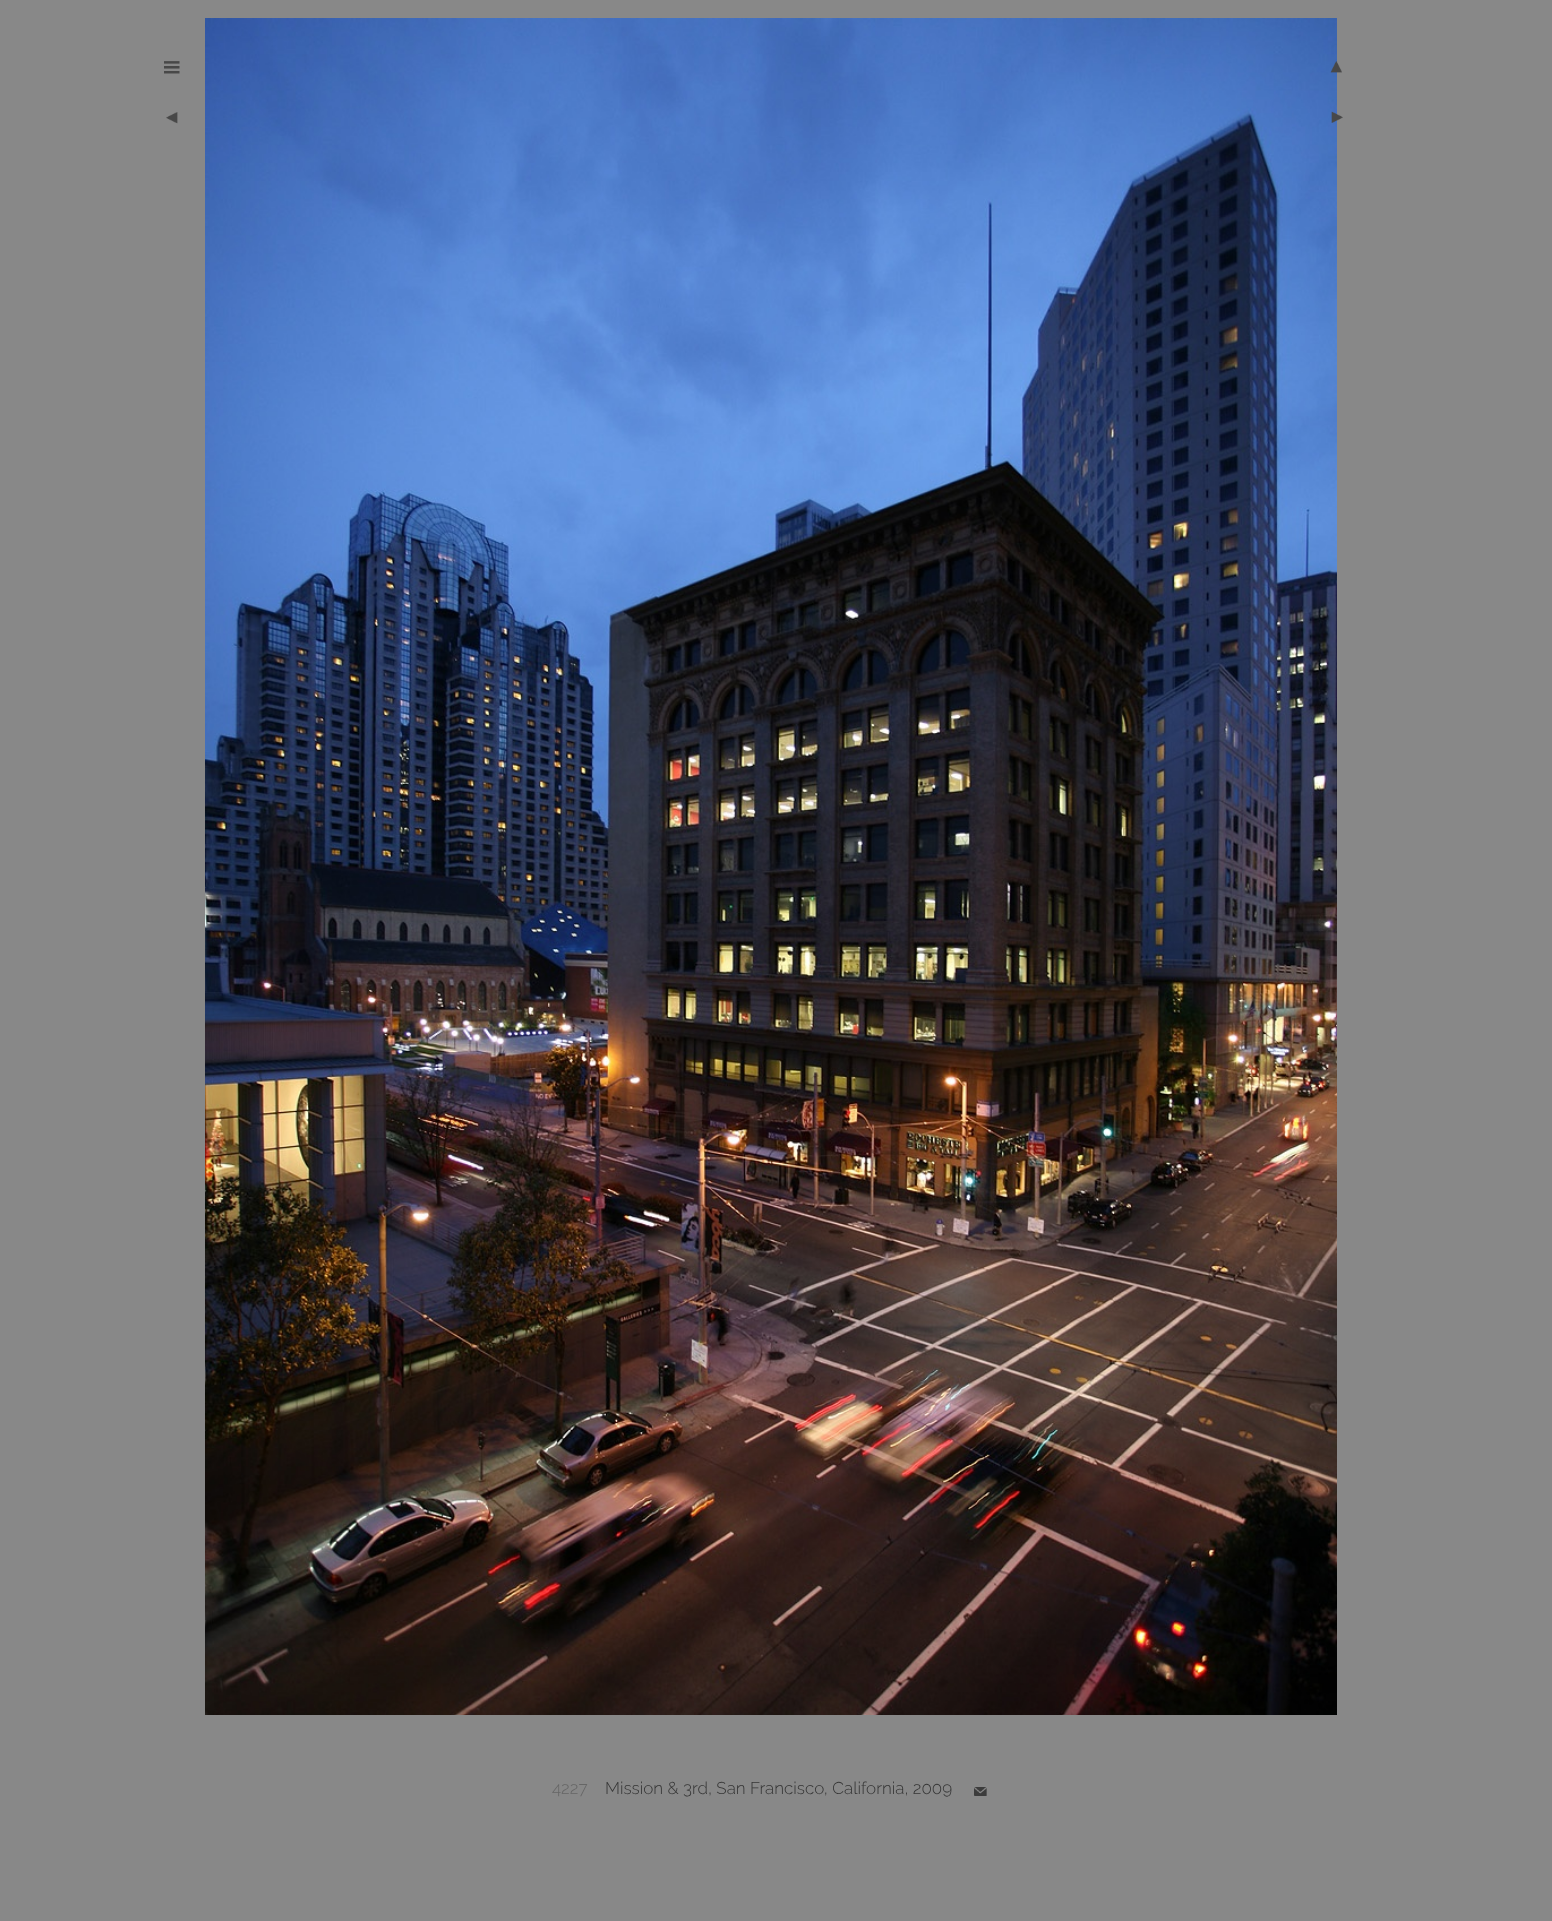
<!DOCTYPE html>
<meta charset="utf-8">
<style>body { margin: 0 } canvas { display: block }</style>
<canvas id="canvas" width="1552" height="1921"></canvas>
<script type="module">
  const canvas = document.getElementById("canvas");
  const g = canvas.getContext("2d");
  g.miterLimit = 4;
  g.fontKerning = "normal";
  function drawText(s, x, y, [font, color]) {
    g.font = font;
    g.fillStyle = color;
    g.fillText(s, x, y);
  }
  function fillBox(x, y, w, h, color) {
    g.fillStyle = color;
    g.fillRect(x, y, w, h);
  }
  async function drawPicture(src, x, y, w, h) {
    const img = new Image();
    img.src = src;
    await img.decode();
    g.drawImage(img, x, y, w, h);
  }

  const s1 = ["100 17px Raleway", "#666666"];
  const s2 = ["100 17px Raleway", "#353535"];

  fillBox(0, 0, 1552, 1921, "#888888");
  await drawPicture("pic1.png", 164, 61, 16, 13);
  await drawPicture("pic2.png", 205, 18, 1132, 1697);
  await drawPicture("pic3.png", 1330, 61, 12, 12);
  await drawPicture("pic4.png", 166, 112, 12, 12);
  await drawPicture("pic5.png", 1331, 111, 12, 12);
  drawText("4227", 552, 1794, s1);
  drawText("Mission & 3rd, San Francisco, California, 2009", 605, 1794, s2);
  await drawPicture("pic6.png", 974, 1787, 13, 9);
</script>
